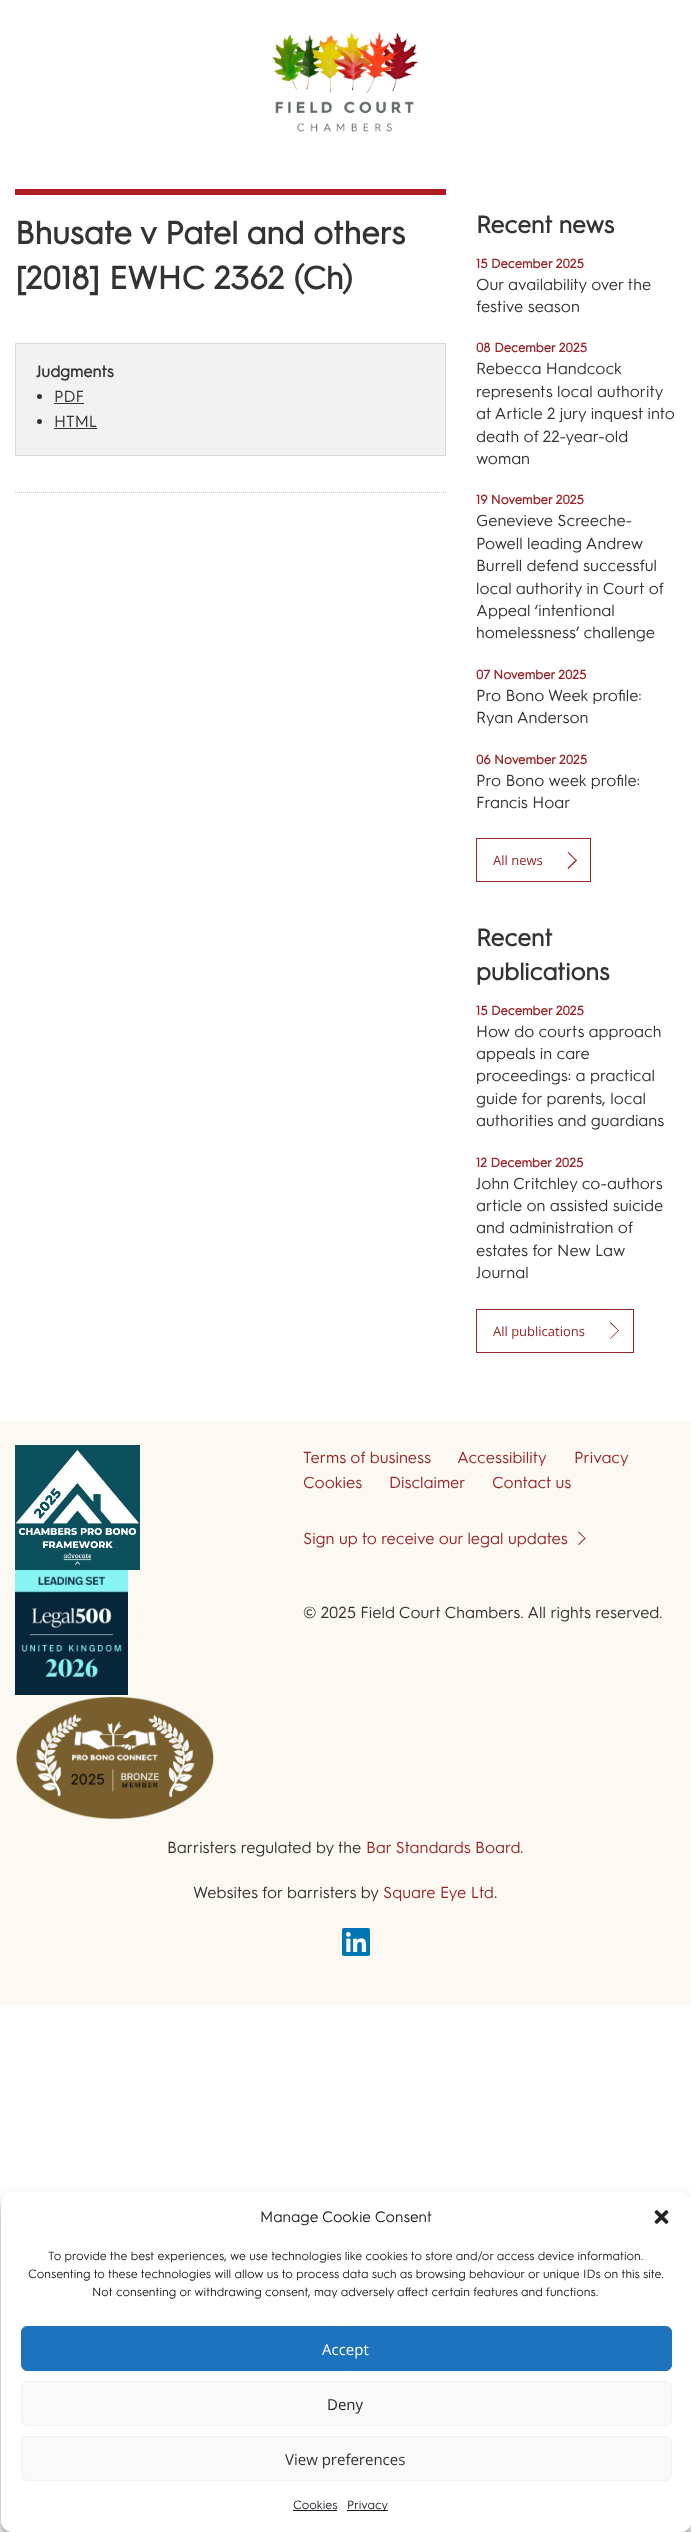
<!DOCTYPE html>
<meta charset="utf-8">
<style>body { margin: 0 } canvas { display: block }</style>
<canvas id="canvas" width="691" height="2532"></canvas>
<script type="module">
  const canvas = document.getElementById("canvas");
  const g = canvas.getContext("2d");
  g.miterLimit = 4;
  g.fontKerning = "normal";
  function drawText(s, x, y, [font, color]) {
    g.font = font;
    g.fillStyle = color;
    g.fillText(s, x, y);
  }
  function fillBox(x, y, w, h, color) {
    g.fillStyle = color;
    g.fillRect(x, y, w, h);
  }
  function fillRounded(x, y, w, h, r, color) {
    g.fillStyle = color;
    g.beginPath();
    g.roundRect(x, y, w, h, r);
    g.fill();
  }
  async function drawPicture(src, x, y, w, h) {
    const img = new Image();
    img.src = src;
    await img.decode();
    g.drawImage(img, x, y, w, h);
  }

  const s1 = ["bold 32px 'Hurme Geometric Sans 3'", "#333333"];
  const s2 = ["bold 16px 'Hurme Geometric Sans 3'", "#333333"];
  const s3 = ["16px 'Hurme Geometric Sans 3'", "#333333"];
  const s4 = ["bold 24px 'Hurme Geometric Sans 3'", "#333333"];
  const s5 = ["bold 12.75px 'Hurme Geometric Sans 3'", "#992529"];
  const s6 = ["13px Open Sans", "#992529"];
  const s7 = ["16px 'Hurme Geometric Sans 3'", "#992529"];
  const s8 = ["15px 'Hurme Geometric Sans 3'", "#222222"];
  const s9 = ["12px 'Hurme Geometric Sans 3'", "#222222"];
  const s10 = ["15px Open Sans", "#FFFFFF"];
  const s11 = ["15px Open Sans", "#222222"];
  const s12 = ["15px Open Sans", "#333333"];
  const s13 = ["12px 'Hurme Geometric Sans 3'", "#191E23"];

  fillBox(0, 0, 691, 2532, "#FFFFFF");
  await drawPicture("pic1.png", 271, 32, 148, 100);
  fillBox(15, 189, 431, 6, "#AF1C22");
  g.beginPath();
  g.moveTo(15, 492.5);
  g.lineTo(446, 492.5);
  g.strokeStyle = "#CCCCCC";
  g.setLineDash([1, 1]);
  g.stroke();
  drawText("Bhusate v Patel and others", 15, 244, s1);
  drawText("[2018] EWHC 2362 (Ch)", 15, 289, s1);
  g.fillStyle = "#F2F2F2";
  g.beginPath();
  g.rect(15.5, 343.5, 430, 112);
  g.fill();
  g.strokeStyle = "#D8D8D8";
  g.setLineDash([]);
  g.stroke();
  drawText("Judgments", 36, 377, s2);
  g.beginPath();
  g.arc(39.5, 396.5, 2.5, 0, Math.PI * 2);
  g.fill();
  drawText("PDF", 54, 402, s3);
  fillBox(54, 403, 30, 1, "#333333");
  g.beginPath();
  g.arc(39.5, 421.5, 2.5, 0, Math.PI * 2);
  g.fill();
  drawText("HTML", 54, 427, s3);
  fillBox(54, 428, 43, 1, "#333333");
  drawText("Recent news", 476, 233, s4);
  drawText("15 December 2025", 476, 268, s5);
  drawText("Our availability over the", 476, 290, s3);
  drawText("festive season", 476, 312, s3);
  drawText("08 December 2025", 476, 352, s5);
  drawText("Rebecca Handcock", 476, 374, s3);
  drawText("represents local authority", 476, 397, s3);
  drawText("at Article 2 jury inquest into", 476, 419, s3);
  drawText("death of 22-year-old", 476, 442, s3);
  drawText("woman", 476, 464, s3);
  drawText("19 November 2025", 476, 504, s5);
  drawText("Genevieve Screeche-", 476, 526, s3);
  drawText("Powell leading Andrew", 476, 549, s3);
  drawText("Burrell defend successful", 476, 571, s3);
  drawText("local authority in Court of", 476, 594, s3);
  drawText("Appeal ‘intentional", 476, 616, s3);
  drawText("homelessness’ challenge", 476, 638, s3);
  drawText("07 November 2025", 476, 679, s5);
  drawText("Pro Bono Week profile:", 476, 701, s3);
  drawText("Ryan Anderson", 476, 723, s3);
  drawText("06 November 2025", 476, 764, s5);
  drawText("Pro Bono week profile:", 476, 786, s3);
  drawText("Francis Hoar", 476, 808, s3);
  g.strokeStyle = "#992529";
  g.strokeRect(476.5, 838.5, 114, 43);
  drawText("All news", 493, 865, s6);
  g.beginPath();
  g.moveTo(568.5, 852);
  g.lineTo(577, 860.5);
  g.lineTo(576, 861);
  g.lineTo(567.5, 852.5);
  g.closePath();
  g.fill();
  g.beginPath();
  g.moveTo(576, 859.5);
  g.lineTo(577, 860.5);
  g.lineTo(568.5, 869);
  g.lineTo(567.5, 868);
  g.closePath();
  g.fill();
  drawText("Recent", 476, 946, s4);
  drawText("publications", 476, 980, s4);
  drawText("15 December 2025", 476, 1015, s5);
  drawText("How do courts approach", 476, 1037, s3);
  drawText("appeals in care", 476, 1059, s3);
  drawText("proceedings: a practical", 476, 1081, s3);
  drawText("guide for parents, local", 476, 1104, s3);
  drawText("authorities and guardians", 476, 1126, s3);
  drawText("12 December 2025", 476, 1167, s5);
  drawText("John Critchley co-authors", 476, 1189, s3);
  drawText("article on assisted suicide", 476, 1211, s3);
  drawText("and administration of", 476, 1233, s3);
  drawText("estates for New Law", 476, 1256, s3);
  drawText("Journal", 476, 1278, s3);
  g.strokeRect(476.5, 1309.5, 157, 43);
  drawText("All publications", 493, 1336, s6);
  g.beginPath();
  g.moveTo(610.5, 1322);
  g.lineTo(619, 1330.5);
  g.lineTo(618.5, 1331);
  g.lineTo(610, 1323);
  g.closePath();
  g.fill();
  g.beginPath();
  g.moveTo(618.5, 1330);
  g.lineTo(619, 1330.5);
  g.lineTo(610.5, 1339);
  g.lineTo(610, 1338.5);
  g.closePath();
  g.fill();
  fillBox(0, 1421, 691, 584, "#FBF9F2");
  await drawPicture("pic2.png", 15, 1445, 125, 125);
  await drawPicture("pic3.png", 15, 1570, 113, 125);
  await drawPicture("pic4.png", 16, 1696, 198, 124);
  drawText("Terms of business", 303, 1463, s7);
  drawText("Accessibility", 457, 1463, s7);
  drawText("Privacy", 574, 1463, s7);
  drawText("Cookies", 303, 1488, s7);
  drawText("Disclaimer", 389, 1488, s7);
  drawText("Contact us", 492, 1488, s7);
  drawText("Sign up to receive our legal updates", 303, 1544, s7);
  g.beginPath();
  g.moveTo(579, 1531.5);
  g.lineTo(585.5, 1538.5);
  g.lineTo(585, 1539);
  g.lineTo(578, 1532);
  g.closePath();
  g.fill();
  g.beginPath();
  g.moveTo(585, 1537.5);
  g.lineTo(585.5, 1538.5);
  g.lineTo(579, 1545);
  g.lineTo(578, 1544.5);
  g.closePath();
  g.fill();
  drawText("© 2025 Field Court Chambers. All rights reserved.", 303, 1618, s3);
  drawText("Barristers regulated by the", 167, 1853, s3);
  drawText("Bar Standards Board", 366, 1853, s7);
  drawText(".", 520, 1853, s3);
  drawText("Websites for barristers by", 193, 1898, s3);
  drawText("Square Eye Ltd", 383, 1898, s7);
  drawText(".", 494, 1898, s3);
  await drawPicture("pic5.png", 342, 1928, 28, 28);
  g.save();
  g.beginPath();
  g.moveTo(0, 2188);
  g.lineTo(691, 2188);
  g.lineTo(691, 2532);
  g.lineTo(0, 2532);
  g.closePath();
  g.moveTo(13, 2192);
  g.lineTo(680, 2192);
  g.bezierCurveTo(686.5, 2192, 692, 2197.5, 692, 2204);
  g.lineTo(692, 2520);
  g.bezierCurveTo(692, 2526.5, 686.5, 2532, 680, 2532);
  g.lineTo(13, 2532);
  g.bezierCurveTo(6.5, 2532, 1, 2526.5, 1, 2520);
  g.lineTo(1, 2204);
  g.bezierCurveTo(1, 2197.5, 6.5, 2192, 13, 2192);
  g.closePath();
  g.clip("evenodd");
  g.fillStyle = "rgba(0, 0, 0, 0.23)";
  g.filter = "blur(3px)";
  g.beginPath();
  g.roundRect(1, 2198, 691, 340, 12);
  g.fill();
  g.filter = "none";
  g.restore();
  g.save();
  g.beginPath();
  g.moveTo(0, 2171);
  g.lineTo(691, 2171);
  g.lineTo(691, 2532);
  g.lineTo(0, 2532);
  g.closePath();
  g.moveTo(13, 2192);
  g.lineTo(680, 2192);
  g.bezierCurveTo(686.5, 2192, 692, 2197.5, 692, 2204);
  g.lineTo(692, 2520);
  g.bezierCurveTo(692, 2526.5, 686.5, 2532, 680, 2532);
  g.lineTo(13, 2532);
  g.bezierCurveTo(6.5, 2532, 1, 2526.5, 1, 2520);
  g.lineTo(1, 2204);
  g.bezierCurveTo(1, 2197.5, 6.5, 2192, 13, 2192);
  g.closePath();
  g.clip("evenodd");
  g.fillStyle = "rgba(0, 0, 0, 0.19)";
  g.filter = "blur(10px)";
  g.beginPath();
  g.roundRect(1, 2202, 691, 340, 12);
  g.fill();
  g.filter = "none";
  g.restore();
  fillRounded(1, 2192, 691, 340, 12, "#FFFFFF");
  drawText("Manage Cookie Consent", 260, 2222, s8);
  await drawPicture("pic6.png", 654, 2210, 15, 14);
  drawText("To provide the best experiences, we use technologies like cookies to store and/or access device information.", 48, 2260, s9);
  drawText("Consenting to these technologies will allow us to process data such as browsing behaviour or unique IDs on this site.", 28, 2278, s9);
  drawText("Not consenting or withdrawing consent, may adversely affect certain features and functions.", 92, 2296, s9);
  g.fillStyle = "#1E73BE";
  g.beginPath();
  g.roundRect(21.5, 2326.5, 650, 44, 5.5);
  g.fill();
  g.strokeStyle = "#1E73BE";
  g.stroke();
  drawText("Accept", 322, 2355, s10);
  g.fillStyle = "#F9F9F9";
  g.beginPath();
  g.roundRect(21.5, 2381.5, 650, 44, 5.5);
  g.fill();
  g.strokeStyle = "#F2F2F2";
  g.stroke();
  drawText("Deny", 327, 2410, s11);
  g.fillStyle = "#F9F9F9";
  g.beginPath();
  g.roundRect(21.5, 2436.5, 650, 44, 5.5);
  g.fill();
  g.stroke();
  drawText("View preferences", 285, 2465, s12);
  drawText("Cookies", 293, 2509, s13);
  fillBox(293, 2510, 44, 1, "#191E23");
  fillBox(347, 2510, 41, 1, "#191E23");
  drawText("Privacy", 347, 2509, s13);
</script>
